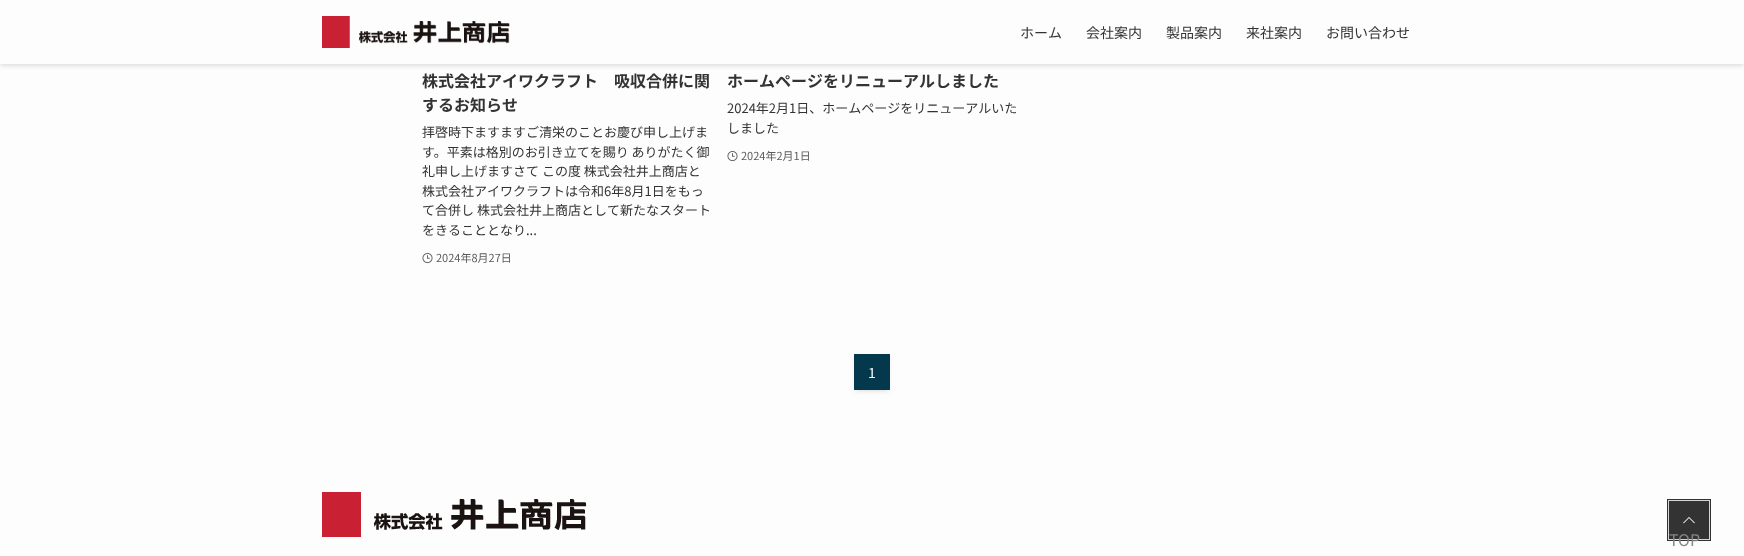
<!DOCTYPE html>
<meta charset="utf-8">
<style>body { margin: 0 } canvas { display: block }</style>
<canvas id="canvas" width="1744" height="556"></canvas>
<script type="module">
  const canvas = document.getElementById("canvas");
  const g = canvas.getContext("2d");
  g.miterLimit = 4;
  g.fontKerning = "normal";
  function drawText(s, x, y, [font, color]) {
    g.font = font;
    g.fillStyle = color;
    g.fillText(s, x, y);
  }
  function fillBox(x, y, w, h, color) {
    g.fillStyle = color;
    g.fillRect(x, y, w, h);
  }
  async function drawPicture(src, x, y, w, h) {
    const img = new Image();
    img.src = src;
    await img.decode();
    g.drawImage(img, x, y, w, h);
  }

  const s1 = ["14px Noto Sans JP", "#333333"];
  const s2 = ["bold 16px Noto Sans JP", "#333333"];
  const s3 = ["13px Noto Sans JP", "#333333"];
  const s4 = ["11px Noto Sans JP", "#5B5B5B"];
  const s5 = ["14px Noto Sans JP", "#FFFFFF"];
  const s6 = ["16px Noto Sans JP", "#858585"];

  fillBox(0, 0, 1744, 556, "#FDFDFD");
  g.fillStyle = "rgba(0, 0, 0, 0.12)";
  g.filter = "blur(2px)";
  g.beginPath();
  g.rect(0, 2, 1744, 64);
  g.fill();
  g.filter = "none";
  fillBox(0, 0, 1744, 64, "#FDFDFD");
  await drawPicture("pic1.png", 322, 16, 188, 32);
  drawText("ホーム", 1020, 38, s1);
  drawText("会社案内", 1086, 38, s1);
  drawText("製品案内", 1166, 38, s1);
  drawText("来社案内", 1246, 38, s1);
  drawText("お問い合わせ", 1326, 38, s1);
  drawText("株式会社アイワクラフト　吸収合併に関", 422, 87, s2);
  drawText("するお知らせ", 422, 111, s2);
  drawText("拝啓時下ますますご清栄のことお慶び申し上げま", 422, 137, s3);
  drawText("す。平素は格別のお引き立てを賜り ありがたく御", 422, 157, s3);
  drawText("礼申し上げますさて この度 株式会社井上商店と", 422, 176, s3);
  drawText("株式会社アイワクラフトは令和6年8月1日をもっ", 422, 196, s3);
  drawText("て合併し 株式会社井上商店として新たなスタート", 422, 215, s3);
  drawText("をきることとなり...", 422, 235, s3);
  await drawPicture("pic2.png", 422, 253, 11, 11);
  drawText("2024年8月27日", 436, 262, s4);
  drawText("ホームページをリニューアルしました", 727, 87, s2);
  drawText("2024年2月1日、ホームページをリニューアルいた", 727, 113, s3);
  drawText("しました", 727, 133, s3);
  await drawPicture("pic2.png", 727, 151, 11, 11);
  drawText("2024年2月1日", 741, 160, s4);
  g.fillStyle = "rgba(0, 0, 0, 0.1)";
  g.filter = "blur(2px)";
  g.beginPath();
  g.rect(858, 362, 28, 28);
  g.fill();
  g.filter = "none";
  g.fillStyle = "rgba(0, 0, 0, 0.05)";
  g.filter = "blur(2px)";
  g.beginPath();
  g.rect(854, 356, 36, 36);
  g.fill();
  g.filter = "none";
  fillBox(854, 354, 36, 36, "#04384C");
  drawText("1", 868, 378, s5);
  await drawPicture("pic3.png", 322, 492, 265, 45);
  g.strokeStyle = "#333333";
  g.lineWidth = 2;
  g.strokeRect(1668, 500, 42, 40);
  g.strokeStyle = "#D6D6D6";
  g.lineWidth = 1;
  g.strokeRect(1668.5, 500.5, 41, 39);
  fillBox(1669, 501, 40, 38, "#333333");
  await drawPicture("pic4.png", 1683, 517, 12, 7);
  drawText("TOP", 1669, 546, s6);
</script>
